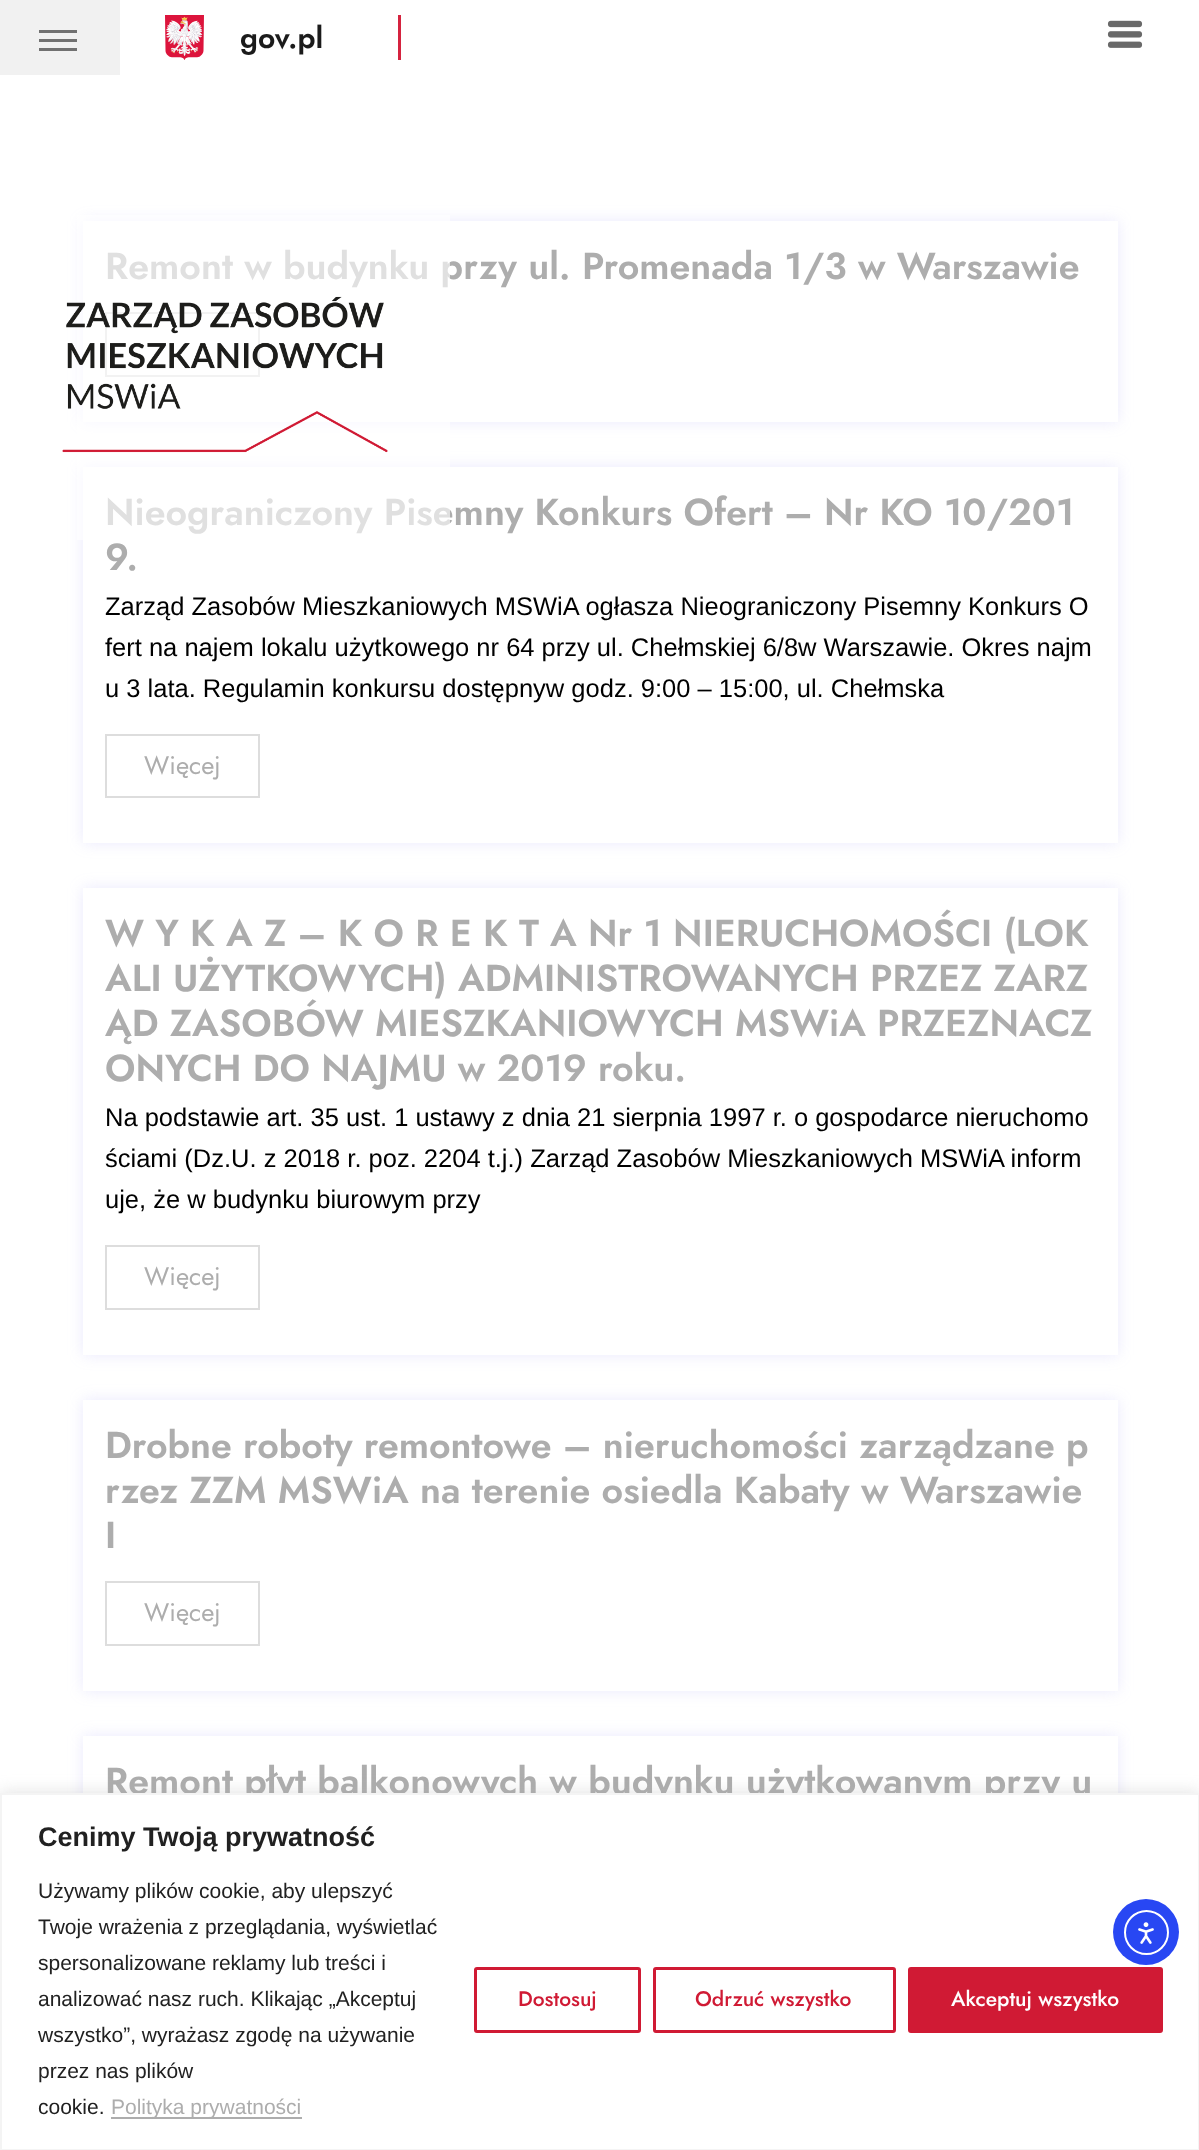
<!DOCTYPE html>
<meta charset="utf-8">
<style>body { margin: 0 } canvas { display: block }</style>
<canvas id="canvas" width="1199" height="2150"></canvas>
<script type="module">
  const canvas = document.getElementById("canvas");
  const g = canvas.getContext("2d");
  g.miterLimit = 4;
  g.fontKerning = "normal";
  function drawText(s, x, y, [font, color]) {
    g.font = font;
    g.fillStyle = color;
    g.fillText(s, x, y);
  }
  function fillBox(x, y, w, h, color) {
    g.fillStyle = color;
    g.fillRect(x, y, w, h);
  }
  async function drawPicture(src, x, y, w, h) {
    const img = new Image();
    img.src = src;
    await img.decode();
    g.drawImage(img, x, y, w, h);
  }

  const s1 = ["600 30px Jost", "#1B1B1B"];
  const s2 = ["600 37.5px Jost", "#ADADAD"];
  const s3 = ["25.5px Liberation Sans", "#000000"];
  const s4 = ["25.5px Jost", "#ADADAD"];
  const s5 = ["bold 27px Liberation Sans", "#212121"];
  const s6 = ["21px Liberation Sans", "#212121"];
  const s7 = ["21px Liberation Sans", "#ADADAD"];
  const s8 = ["500 21px Jost", "#D01A34"];
  const s9 = ["500 21px Jost", "#FFFFFF"];

  fillBox(0, 0, 1199, 2150, "#FFFFFF");
  fillBox(0, 0, 120, 75, "#F1F1F1");
  fillBox(39, 30, 38, 3, "#717171");
  fillBox(39, 39, 38, 3, "#717171");
  fillBox(39, 48, 38, 3, "#717171");
  await drawPicture("pic1.png", 165, 15, 39, 45);
  drawText("gov.pl", 240, 48, s1);
  fillBox(398, 15, 3, 45, "#D5233F");
  await drawPicture("pic2.png", 1107, 20, 36, 28);
  g.fillStyle = "rgba(148, 146, 245, 0.2)";
  g.filter = "blur(7.5px)";
  g.beginPath();
  g.rect(83, 221, 1035, 201);
  g.fill();
  g.filter = "none";
  fillBox(83, 221, 1035, 201, "#FFFFFF");
  drawText("Remont w budynku przy ul. Promenada 1/3 w Warszawie", 105, 279, s2);
  g.strokeStyle = "#DDDDDD";
  g.lineWidth = 2;
  g.strokeRect(106, 313, 153, 63);
  g.fillStyle = "rgba(148, 146, 245, 0.2)";
  g.filter = "blur(7.5px)";
  g.beginPath();
  g.rect(83, 467, 1035, 376);
  g.fill();
  g.filter = "none";
  fillBox(83, 467, 1035, 376, "#FFFFFF");
  drawText("Nieograniczony Pisemny Konkurs Ofert – Nr KO 10/201", 105, 525, s2);
  fillBox(77, 215, 373, 325, "rgba(255, 255, 255, 0.62)");
  await drawPicture("pic3.png", 62, 296, 326, 157);
  drawText("9.", 105, 570, s2);
  drawText("Zarząd Zasobów Mieszkaniowych MSWiA ogłasza Nieograniczony Pisemny Konkurs O", 105, 615, s3);
  drawText("fert na najem lokalu użytkowego nr 64 przy ul. Chełmskiej 6/8w Warszawie. Okres najm", 105, 656, s3);
  drawText("u 3 lata. Regulamin konkursu dostępnyw godz. 9:00 – 15:00, ul. Chełmska", 105, 697, s3);
  g.strokeRect(106, 735, 153, 62);
  drawText("Więcej", 144, 774, s4);
  g.fillStyle = "rgba(148, 146, 245, 0.2)";
  g.filter = "blur(7.5px)";
  g.beginPath();
  g.rect(83, 888, 1035, 467);
  g.fill();
  g.filter = "none";
  fillBox(83, 888, 1035, 467, "#FFFFFF");
  drawText("W Y K A Z – K O R E K T A Nr 1 NIERUCHOMOŚCI (LOK", 105, 946, s2);
  drawText("ALI UŻYTKOWYCH) ADMINISTROWANYCH PRZEZ ZARZ", 105, 991, s2);
  drawText("ĄD ZASOBÓW MIESZKANIOWYCH MSWiA PRZEZNACZ", 105, 1036, s2);
  drawText("ONYCH DO NAJMU w 2019 roku.", 105, 1081, s2);
  drawText("Na podstawie art. 35 ust. 1 ustawy z dnia 21 sierpnia 1997 r. o gospodarce nieruchomo", 105, 1126, s3);
  drawText("ściami (Dz.U. z 2018 r. poz. 2204 t.j.) Zarząd Zasobów Mieszkaniowych MSWiA inform", 105, 1167, s3);
  drawText("uje, że w budynku biurowym przy", 105, 1208, s3);
  g.strokeRect(106, 1246, 153, 63);
  drawText("Więcej", 144, 1285, s4);
  g.fillStyle = "rgba(148, 146, 245, 0.2)";
  g.filter = "blur(7.5px)";
  g.beginPath();
  g.rect(83, 1400, 1035, 291);
  g.fill();
  g.filter = "none";
  fillBox(83, 1400, 1035, 291, "#FFFFFF");
  drawText("Drobne roboty remontowe – nieruchomości zarządzane p", 105, 1458, s2);
  drawText("rzez ZZM MSWiA na terenie osiedla Kabaty w Warszawie", 105, 1503, s2);
  drawText("I", 105, 1548, s2);
  g.strokeRect(106, 1582, 153, 63);
  drawText("Więcej", 144, 1621, s4);
  g.fillStyle = "rgba(148, 146, 245, 0.2)";
  g.filter = "blur(7.5px)";
  g.beginPath();
  g.rect(83, 1736, 1035, 246);
  g.fill();
  g.filter = "none";
  fillBox(83, 1736, 1035, 57, "#FFFFFF");
  drawText("Remont płyt balkonowych w budynku użytkowanym przy u", 105, 1794, s2);
  g.fillStyle = "rgba(172, 171, 171, 0.3)";
  g.filter = "blur(7.5px)";
  g.beginPath();
  g.rect(0, 1791, 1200, 359);
  g.fill();
  g.filter = "none";
  g.fillStyle = "#FFFFFF";
  g.beginPath();
  g.rect(1, 1794, 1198, 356);
  g.fill();
  g.strokeStyle = "#F4F4F4";
  g.stroke();
  drawText("Cenimy Twoją prywatność", 38, 1846, s5);
  drawText("Używamy plików cookie, aby ulepszyć", 38, 1898, s6);
  drawText("Twoje wrażenia z przeglądania, wyświetlać", 38, 1934, s6);
  drawText("spersonalizowane reklamy lub treści i", 38, 1970, s6);
  drawText("analizować nasz ruch. Klikając „Akceptuj", 38, 2006, s6);
  drawText("wszystko”, wyrażasz zgodę na używanie", 38, 2042, s6);
  drawText("przez nas plików", 38, 2078, s6);
  drawText("cookie.", 38, 2114, s6);
  fillBox(111, 2117, 191, 2, "#ADADAD");
  drawText("Polityka prywatności", 111, 2114, s7);
  g.beginPath();
  g.roundRect(475.5, 1968.5, 164, 63, 1.5);
  g.strokeStyle = "#D01A34";
  g.lineWidth = 3;
  g.stroke();
  drawText("Dostosuj", 518, 2006, s8);
  g.beginPath();
  g.roundRect(654.5, 1968.5, 240, 63, 1.5);
  g.stroke();
  drawText("Odrzuć wszystko", 695, 2006, s8);
  g.beginPath();
  g.roundRect(909.5, 1968.5, 252, 63, 1.5);
  g.fill();
  g.stroke();
  drawText("Akceptuj wszystko", 951, 2006, s9);
  g.fillStyle = "#2847F3";
  g.beginPath();
  g.arc(1146, 1932, 33, 0, Math.PI * 2);
  g.fill();
  g.beginPath();
  g.arc(1146.5, 1932.5, 21.5, 0, Math.PI * 2);
  g.strokeStyle = "#FFFFFF";
  g.lineWidth = 2;
  g.stroke();
  await drawPicture("pic4.png", 1138, 1922, 16, 22);
</script>
